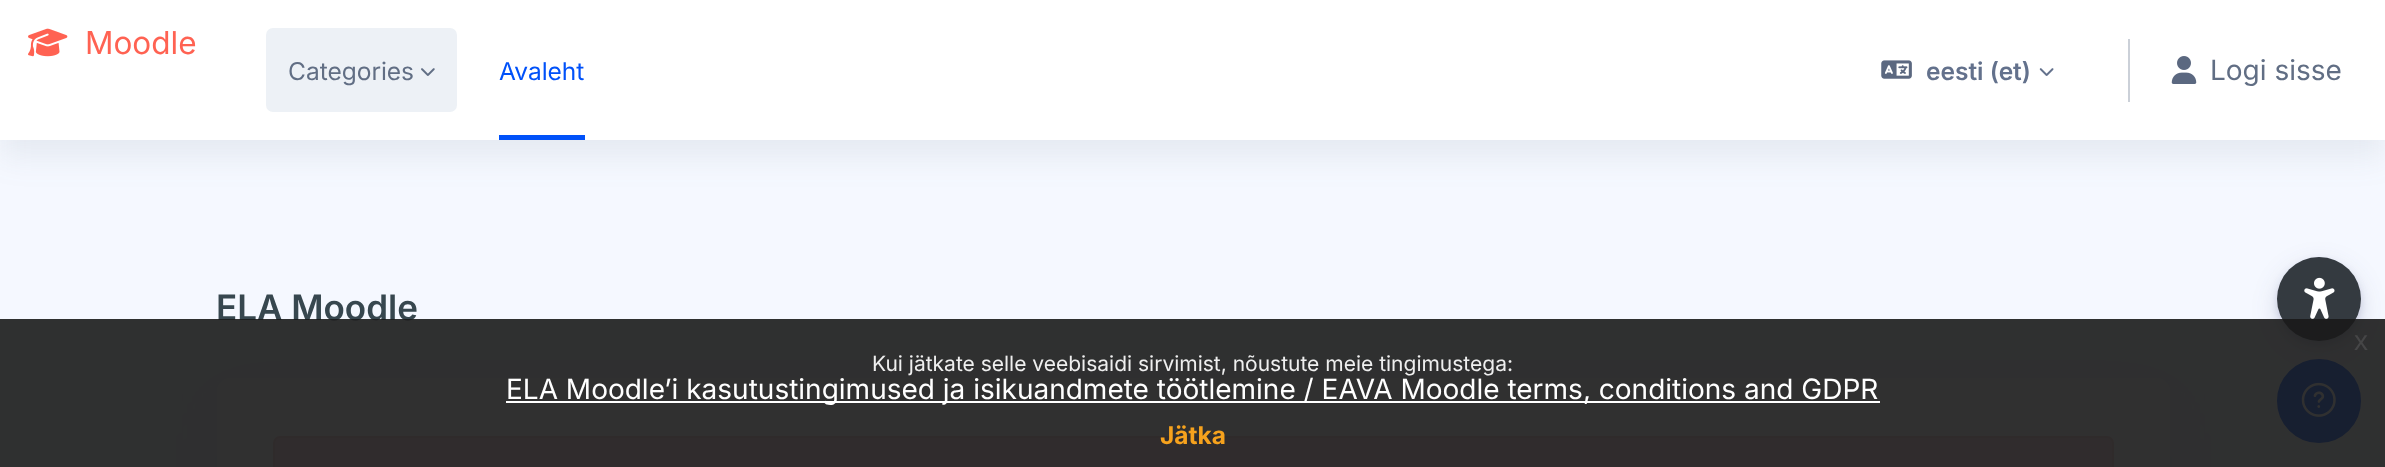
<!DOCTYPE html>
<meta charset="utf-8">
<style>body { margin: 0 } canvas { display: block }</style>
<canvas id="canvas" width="2385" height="467"></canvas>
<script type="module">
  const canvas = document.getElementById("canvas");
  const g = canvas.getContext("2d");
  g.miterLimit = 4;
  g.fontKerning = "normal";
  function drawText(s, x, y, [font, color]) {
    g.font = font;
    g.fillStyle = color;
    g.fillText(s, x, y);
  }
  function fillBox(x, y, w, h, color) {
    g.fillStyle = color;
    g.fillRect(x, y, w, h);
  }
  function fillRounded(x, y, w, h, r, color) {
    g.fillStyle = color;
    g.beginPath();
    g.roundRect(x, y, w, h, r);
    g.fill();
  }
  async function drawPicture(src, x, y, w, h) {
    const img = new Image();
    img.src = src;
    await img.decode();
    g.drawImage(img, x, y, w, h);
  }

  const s1 = ["31.5px Inter", "#FF6252"];
  const s2 = ["24.5px Inter", "#616E84"];
  const s3 = ["24.5px Inter", "#0051F9"];
  const s4 = ["600 24.5px Inter", "#63718C"];
  const s5 = ["28px Inter", "#616E84"];
  const s6 = ["600 35px Inter", "#37474F"];
  const s7 = ["28px Liberation Sans", "#464647"];
  const s8 = ["21px Inter", "#EFEFEF"];
  const s9 = ["28px Inter", "#FFFFFF"];
  const s10 = ["bold 24.5px Inter", "#F6A21D"];

  fillBox(0, 0, 2385, 467, "#F5F8FF");
  g.fillStyle = "rgba(92, 107, 121, 0.1)";
  g.filter = "blur(16px)";
  g.beginPath();
  g.rect(0, 16, 2385, 140);
  g.fill();
  g.filter = "none";
  fillBox(0, 0, 2385, 140, "#FFFFFF");
  await drawPicture("pic1.png", 28, 28, 40, 29);
  drawText("Moodle", 85, 54, s1);
  fillRounded(266, 28, 191, 84, 7, "#EDF1F6");
  drawText("Categories", 288, 80, s2);
  await drawPicture("pic2.png", 421, 68, 14, 8);
  drawText("Avaleht", 499, 80, s3);
  fillBox(499, 135, 86, 5, "#0051F9");
  await drawPicture("pic3.png", 1881, 60, 31, 19);
  drawText("eesti (et)", 1926, 80, s4);
  await drawPicture("pic4.png", 2039, 68, 15, 8);
  fillBox(2128, 39, 2, 63, "#CBD0D8");
  await drawPicture("pic5.png", 2171, 56, 26, 28);
  drawText("Logi sisse", 2210, 80, s5);
  g.fillStyle = "rgba(92, 107, 121, 0.1)";
  g.filter = "blur(32.5px)";
  g.beginPath();
  g.roundRect(217, 401, 1953, 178, 14);
  g.fill();
  g.filter = "none";
  drawText("ELA Moodle", 216, 320, s6);
  fillRounded(217, 378, 1953, 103, 14, "#FFFFFF");
  g.fillStyle = "#F8D7DA";
  g.beginPath();
  g.roundRect(274, 437, 1839, 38, 6);
  g.fill();
  g.strokeStyle = "#F5C6CB";
  g.lineWidth = 2;
  g.stroke();
  g.fillStyle = "rgba(93, 100, 148, 0.2)";
  g.filter = "blur(3.5px)";
  g.beginPath();
  g.roundRect(2277, 261, 84, 84, 42);
  g.fill();
  g.filter = "none";
  g.fillStyle = "rgba(37, 44, 97, 0.15)";
  g.filter = "blur(13px)";
  g.beginPath();
  g.roundRect(2277, 266, 84, 84, 42);
  g.fill();
  g.filter = "none";
  g.fillStyle = "#343A40";
  g.beginPath();
  g.arc(2319, 299, 42, 0, Math.PI * 2);
  g.fill();
  await drawPicture("pic6.png", 2304, 277, 31, 42);
  g.fillStyle = "#0051F9";
  g.beginPath();
  g.arc(2319, 401, 41, 0, Math.PI * 2);
  g.fill();
  g.strokeStyle = "#0051F9";
  g.stroke();
  await drawPicture("pic7.png", 2301, 382, 35, 35);
  fillBox(0, 319, 2385, 148, "rgba(25, 25, 25, 0.9)");
  drawText("x", 2354, 350, s7);
  drawText("Kui jätkate selle veebisaidi sirvimist, nõustute meie tingimustega:", 872, 371, s8);
  fillBox(506, 401, 1374, 2, "#FFFFFF");
  drawText("ELA Moodle’i kasutustingimused ja isikuandmete töötlemine / EAVA Moodle terms, conditions and GDPR", 506, 399, s9);
  drawText("Jätka", 1160, 444, s10);
</script>
